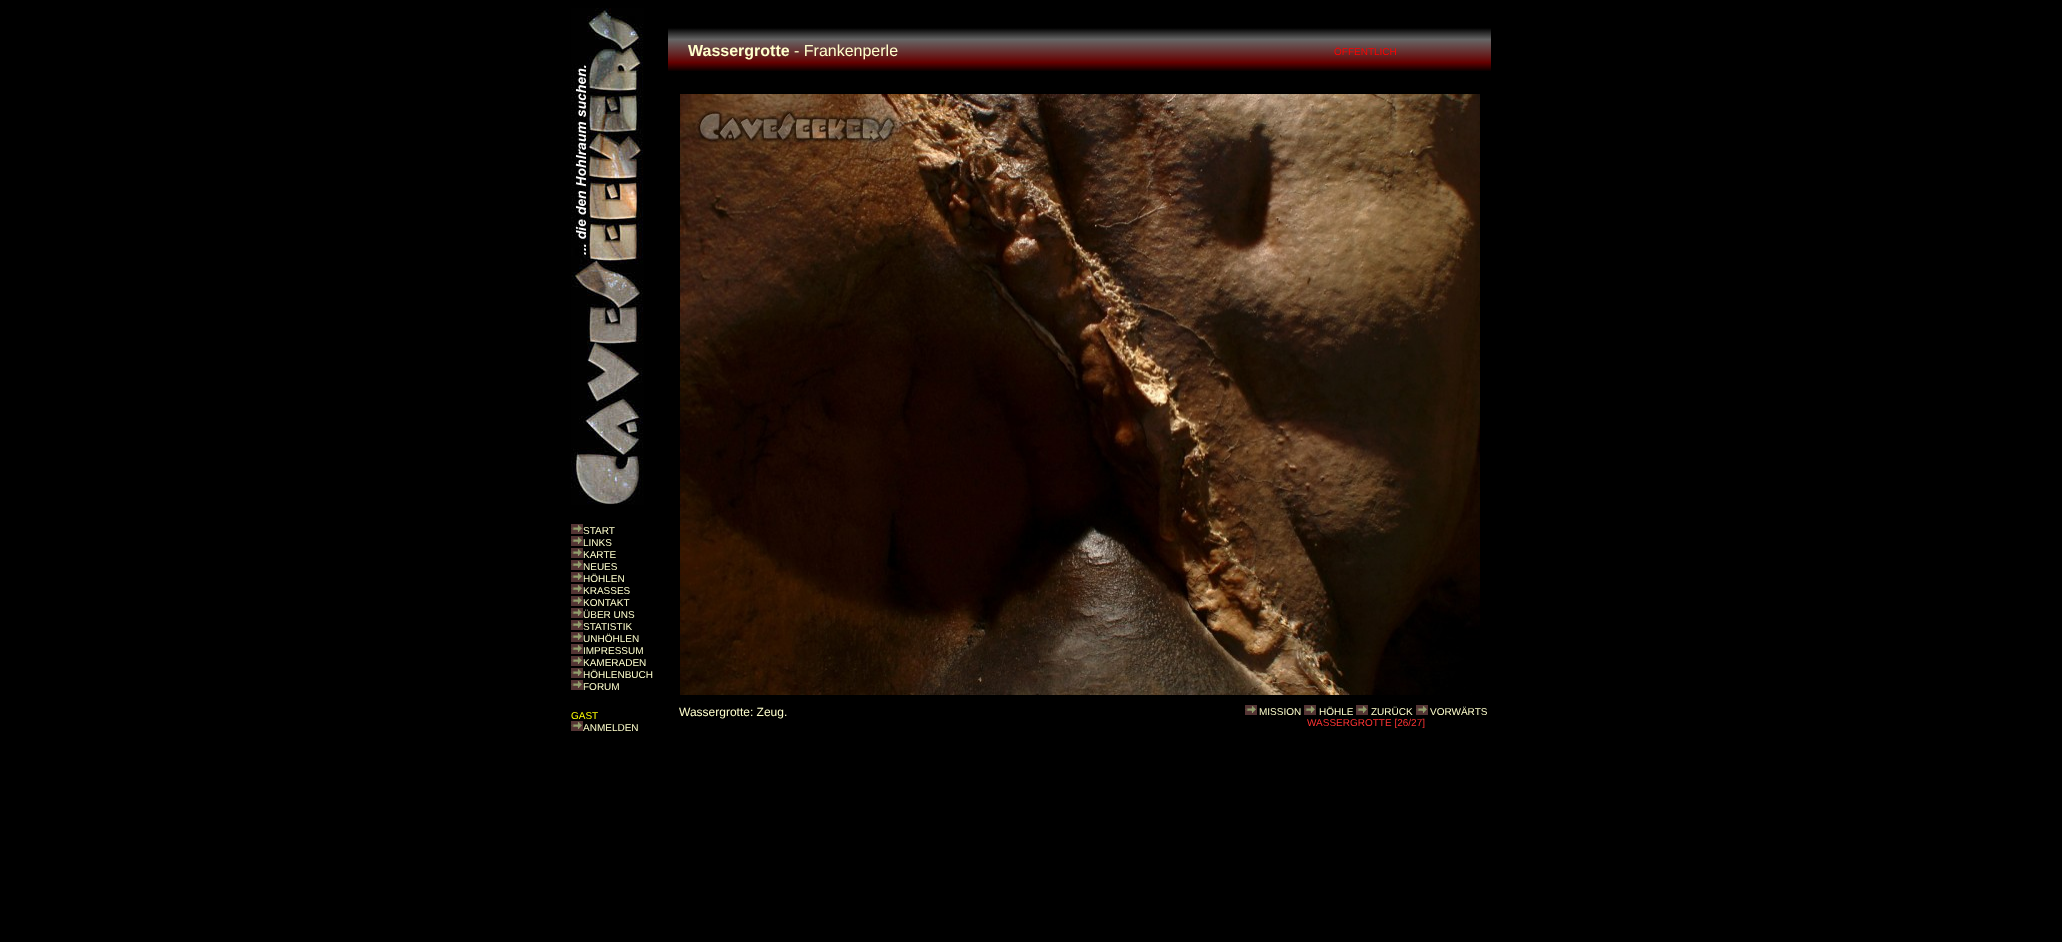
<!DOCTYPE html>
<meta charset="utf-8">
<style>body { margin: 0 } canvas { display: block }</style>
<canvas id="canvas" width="2062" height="942"></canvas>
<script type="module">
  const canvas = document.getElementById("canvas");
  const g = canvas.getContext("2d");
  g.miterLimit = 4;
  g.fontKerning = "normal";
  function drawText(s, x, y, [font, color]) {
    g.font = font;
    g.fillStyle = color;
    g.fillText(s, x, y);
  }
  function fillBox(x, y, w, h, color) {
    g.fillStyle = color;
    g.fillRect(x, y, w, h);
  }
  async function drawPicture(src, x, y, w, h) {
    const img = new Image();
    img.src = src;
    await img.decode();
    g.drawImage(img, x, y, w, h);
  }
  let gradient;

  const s1 = ["10px Liberation Sans", "#FFFFCC"];
  const s2 = ["10px Liberation Sans", "#FFFF00"];
  const s3 = ["bold 16px Liberation Sans", "#FFFFCC"];
  const s4 = ["16px Liberation Sans", "#FFFFCC"];
  const s5 = ["10px Liberation Sans", "#FF0000"];
  const s6 = ["12px Liberation Sans", "#FFFFCC"];
  const s7 = ["10px Liberation Sans", "#FF3333"];

  fillBox(0, 0, 2062, 942, "#000000");
  await drawPicture("pic1.png", 571, 8, 73, 497);
  await drawPicture("pic2.png", 571, 524, 12, 10);
  drawText("START", 583, 534, s1);
  await drawPicture("pic2.png", 571, 536, 12, 10);
  drawText("LINKS", 583, 546, s1);
  await drawPicture("pic2.png", 571, 548, 12, 10);
  drawText("KARTE", 583, 558, s1);
  await drawPicture("pic2.png", 571, 560, 12, 10);
  drawText("NEUES", 583, 570, s1);
  await drawPicture("pic2.png", 571, 572, 12, 10);
  drawText("HÖHLEN", 583, 582, s1);
  await drawPicture("pic2.png", 571, 584, 12, 10);
  drawText("KRASSES", 583, 594, s1);
  await drawPicture("pic2.png", 571, 596, 12, 10);
  drawText("KONTAKT", 583, 606, s1);
  await drawPicture("pic2.png", 571, 608, 12, 10);
  drawText("ÜBER UNS", 583, 618, s1);
  await drawPicture("pic2.png", 571, 620, 12, 10);
  drawText("STATISTIK", 583, 630, s1);
  await drawPicture("pic2.png", 571, 632, 12, 10);
  drawText("UNHÖHLEN", 583, 642, s1);
  await drawPicture("pic2.png", 571, 644, 12, 10);
  drawText("IMPRESSUM", 583, 654, s1);
  await drawPicture("pic2.png", 571, 656, 12, 10);
  drawText("KAMERADEN", 583, 666, s1);
  await drawPicture("pic2.png", 571, 668, 12, 10);
  drawText("HÖHLENBUCH", 583, 678, s1);
  await drawPicture("pic2.png", 571, 680, 12, 10);
  drawText("FORUM", 583, 690, s1);
  drawText("GAST", 571, 719, s2);
  await drawPicture("pic2.png", 571, 721, 12, 10);
  drawText("ANMELDEN", 583, 731, s1);
  gradient = g.createLinearGradient(1080, 28, 1080, 74);
  gradient.addColorStop(0, "#000000");
  gradient.addColorStop(0.25, "#666666");
  gradient.addColorStop(0.75, "#660000");
  gradient.addColorStop(0.95, "#000000");
  g.fillStyle = gradient;
  g.fillRect(668, 28, 823, 43);
  drawText("Wassergrotte", 688, 56, s3);
  drawText("- Frankenperle", 794, 56, s4);
  drawText("ÖFFENTLICH", 1334, 55, s5);
  await drawPicture("pic3.png", 680, 94, 800, 601);
  drawText("Wassergrotte: Zeug.", 679, 716, s6);
  await drawPicture("pic2.png", 1245, 705, 12, 10);
  drawText("MISSION", 1259, 715, s1);
  await drawPicture("pic2.png", 1304, 705, 12, 10);
  drawText("HÖHLE", 1319, 715, s1);
  await drawPicture("pic2.png", 1356, 705, 12, 10);
  drawText("ZURÜCK", 1371, 715, s1);
  await drawPicture("pic2.png", 1416, 705, 12, 10);
  drawText("VORWÄRTS", 1430, 715, s1);
  drawText("WASSERGROTTE [26/27]", 1307, 726, s7);
</script>
